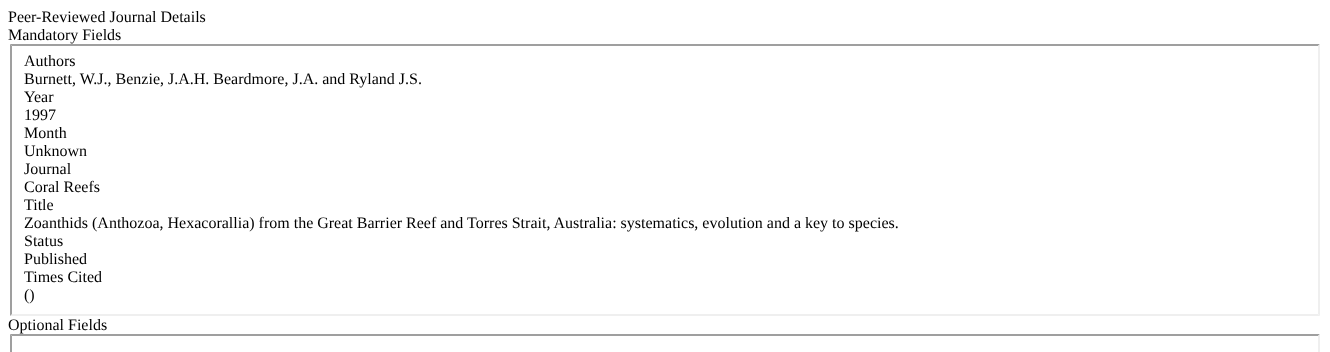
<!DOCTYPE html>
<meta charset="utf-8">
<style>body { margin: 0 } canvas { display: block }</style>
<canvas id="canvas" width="1330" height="352"></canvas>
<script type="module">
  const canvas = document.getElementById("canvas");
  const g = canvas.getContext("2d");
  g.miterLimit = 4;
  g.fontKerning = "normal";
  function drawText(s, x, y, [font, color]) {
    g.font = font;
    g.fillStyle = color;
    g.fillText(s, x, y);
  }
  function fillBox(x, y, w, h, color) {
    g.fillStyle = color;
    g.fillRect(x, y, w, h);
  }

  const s1 = ["16px Liberation Serif", "#000000"];

  fillBox(0, 0, 1330, 352, "#FFFFFF");
  drawText("Peer-Reviewed Journal Details", 8, 22, s1);
  drawText("Mandatory Fields", 8, 40, s1);
  g.fillStyle = "#9F9F9F";
  g.beginPath();
  g.moveTo(10, 44);
  g.lineTo(1320, 44);
  g.lineTo(1318, 46);
  g.lineTo(12, 46);
  g.closePath();
  g.fill();
  g.fillStyle = "#EFEFEF";
  g.beginPath();
  g.moveTo(1320, 44);
  g.lineTo(1320, 316);
  g.lineTo(1318, 314);
  g.lineTo(1318, 46);
  g.closePath();
  g.fill();
  g.beginPath();
  g.moveTo(1320, 316);
  g.lineTo(10, 316);
  g.lineTo(12, 314);
  g.lineTo(1318, 314);
  g.closePath();
  g.fill();
  g.fillStyle = "#9F9F9F";
  g.beginPath();
  g.moveTo(10, 316);
  g.lineTo(10, 44);
  g.lineTo(12, 46);
  g.lineTo(12, 314);
  g.closePath();
  g.fill();
  drawText("Authors", 24, 66, s1);
  drawText("Burnett, W.J., Benzie, J.A.H. Beardmore, J.A. and Ryland J.S.", 24, 84, s1);
  drawText("Year", 24, 102, s1);
  drawText("1997", 24, 120, s1);
  drawText("Month", 24, 138, s1);
  drawText("Unknown", 24, 156, s1);
  drawText("Journal", 24, 174, s1);
  drawText("Coral Reefs", 24, 192, s1);
  drawText("Title", 24, 210, s1);
  drawText("Zoanthids (Anthozoa, Hexacorallia) from the Great Barrier Reef and Torres Strait, Australia: systematics, evolution and a key to species.", 24, 228, s1);
  drawText("Status", 24, 246, s1);
  drawText("Published", 24, 264, s1);
  drawText("Times Cited", 24, 282, s1);
  drawText("()", 24, 300, s1);
  drawText("Optional Fields", 8, 330, s1);
  g.fillStyle = "#9F9F9F";
  g.beginPath();
  g.moveTo(10, 334);
  g.lineTo(1320, 334);
  g.lineTo(1318, 336);
  g.lineTo(12, 336);
  g.closePath();
  g.fill();
  g.fillStyle = "#EFEFEF";
  g.beginPath();
  g.moveTo(1320, 334);
  g.lineTo(1320, 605);
  g.lineTo(1318, 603);
  g.lineTo(1318, 336);
  g.closePath();
  g.fill();
  g.fillStyle = "#9F9F9F";
  g.beginPath();
  g.moveTo(10, 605);
  g.lineTo(10, 334);
  g.lineTo(12, 336);
  g.lineTo(12, 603);
  g.closePath();
  g.fill();
</script>
